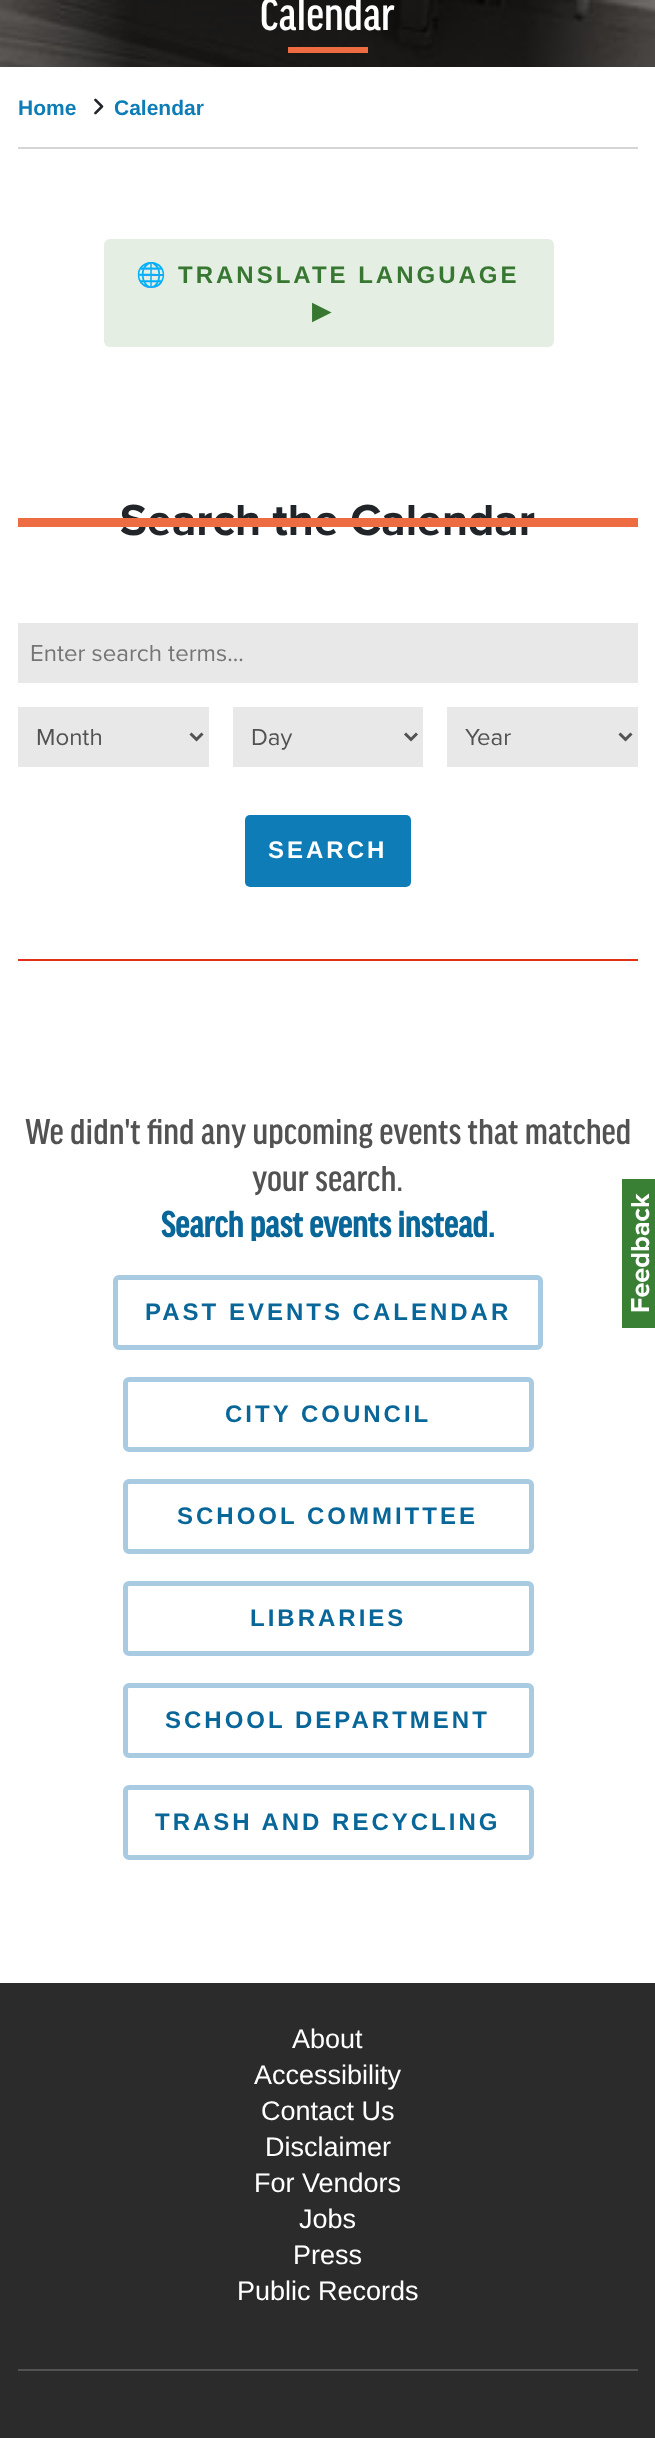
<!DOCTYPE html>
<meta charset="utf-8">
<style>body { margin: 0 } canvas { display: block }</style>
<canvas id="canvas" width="655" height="2438"></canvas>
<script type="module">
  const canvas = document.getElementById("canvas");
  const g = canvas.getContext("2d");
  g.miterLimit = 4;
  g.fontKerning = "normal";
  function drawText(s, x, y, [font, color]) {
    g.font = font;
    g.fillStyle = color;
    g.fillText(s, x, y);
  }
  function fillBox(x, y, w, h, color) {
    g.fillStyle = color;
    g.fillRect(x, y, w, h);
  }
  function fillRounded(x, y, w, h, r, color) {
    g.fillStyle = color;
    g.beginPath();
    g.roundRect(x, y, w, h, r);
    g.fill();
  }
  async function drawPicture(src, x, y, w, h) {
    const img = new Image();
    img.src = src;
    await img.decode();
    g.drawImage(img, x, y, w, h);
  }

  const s1 = ["500 48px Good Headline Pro", "#FFFFFF"];
  const s2 = ["bold 21px Liberation Sans", "#0D7CB7"];
  const s3 = ["bold 24px Noto Color Emoji", "#377731"];
  const s4 = ["bold 24px Liberation Sans", "#377731"];
  const s5 = ["bold 24px DejaVu Sans", "#377731"];
  const s6 = ["bold 45px Proxima Nova", "#212529"];
  const s7 = ["24px Proxima Nova", "#757575"];
  const s8 = ["24px Proxima Nova", "#525252"];
  const s9 = ["bold 24px Liberation Sans", "#FFFFFF"];
  const s10 = ["500 38.4px Good Headline Pro", "#525252"];
  const s11 = ["bold 38.4px Good Headline Pro", "#086699"];
  const s12 = ["bold 24px Liberation Sans", "#086699"];
  const s13 = ["27px Liberation Sans", "#FFFFFF"];

  fillBox(0, 0, 655, 2438, "#FFFFFF");
  await drawPicture("pic1.png", 0, 0, 655, 67);
  drawText("Calendar", 260, 30, s1);
  fillBox(288, 47, 80, 6, "#EE6C42");
  fillBox(18, 147, 620, 2, "#D5D5D5");
  drawText("Home", 18, 115, s2);
  await drawPicture("pic2.png", 94, 98, 10, 17);
  drawText("Calendar", 114, 115, s2);
  fillRounded(104, 239, 450, 108, 6, "#E4EEE3");
  g.letterSpacing = "3px";
  drawText("🌐", 136, 283, s3);
  drawText("TRANSLATE LANGUAGE", 178, 283, s4);
  drawText("▶", 312, 319, s5);
  g.letterSpacing = "0px";
  drawText("Search the Calendar", 120, 535, s6);
  fillBox(18, 518, 620, 9, "#EE6C42");
  fillBox(18, 959, 620, 2, "#DF3114");
  fillBox(18, 623, 620, 60, "#E8E8E8");
  drawText("Enter search terms...", 30, 661, s7);
  fillBox(18, 707, 191, 60, "#E8E8E8");
  g.beginPath();
  g.moveTo(190.5, 733.5);
  g.lineTo(196.5, 739.5);
  g.lineTo(202.5, 733.5);
  g.strokeStyle = "#525252";
  g.lineWidth = 3;
  g.stroke();
  drawText("Month", 36, 745, s8);
  fillBox(233, 707, 190, 60, "#E8E8E8");
  g.beginPath();
  g.moveTo(405, 733.5);
  g.lineTo(411, 739.5);
  g.lineTo(417, 733.5);
  g.stroke();
  drawText("Day", 251, 745, s8);
  fillBox(447, 707, 191, 60, "#E8E8E8");
  g.beginPath();
  g.moveTo(619.5, 733.5);
  g.lineTo(625.5, 739.5);
  g.lineTo(631.5, 733.5);
  g.stroke();
  drawText("Year", 465, 745, s8);
  fillRounded(245, 815, 166, 72, 5, "#0D7CB7");
  g.letterSpacing = "3px";
  drawText("SEARCH", 268, 858, s9);
  g.letterSpacing = "0px";
  drawText("We didn't find any upcoming events that matched", 25, 1144, s10);
  drawText("your search.", 252, 1191, s10);
  drawText("Search past events instead.", 161, 1237, s11);
  g.beginPath();
  g.roundRect(115.5, 1277.5, 425, 70, 3.5);
  g.strokeStyle = "#A8CBE2";
  g.lineWidth = 5;
  g.stroke();
  g.letterSpacing = "3px";
  drawText("PAST EVENTS CALENDAR", 145, 1320, s12);
  g.beginPath();
  g.roundRect(125.5, 1379.5, 406, 70, 3.5);
  g.stroke();
  drawText("CITY COUNCIL", 225, 1422, s12);
  g.beginPath();
  g.roundRect(125.5, 1481.5, 406, 70, 3.5);
  g.stroke();
  drawText("SCHOOL COMMITTEE", 177, 1524, s12);
  g.beginPath();
  g.roundRect(125.5, 1583.5, 406, 70, 3.5);
  g.stroke();
  drawText("LIBRARIES", 250, 1626, s12);
  g.beginPath();
  g.roundRect(125.5, 1685.5, 406, 70, 3.5);
  g.stroke();
  drawText("SCHOOL DEPARTMENT", 165, 1728, s12);
  g.beginPath();
  g.roundRect(125.5, 1787.5, 406, 70, 3.5);
  g.stroke();
  drawText("TRASH AND RECYCLING", 155, 1830, s12);
  fillBox(622, 1179, 33, 149, "#397F34");
  g.letterSpacing = "0px";
  g.font = "bold 27px Proxima Nova";
  g.fillStyle = "#FFFFFF";
  g.save();
  g.translate(649, 1313);
  g.rotate(-90 * Math.PI / 180);
  g.fillText("Feedback", 0, 0);
  g.restore();
  fillBox(0, 1983, 655, 455, "#2B2B2B");
  fillBox(18, 2369, 620, 2, "#525252");
  drawText("About", 292, 2048, s13);
  drawText("Accessibility", 254, 2084, s13);
  drawText("Contact Us", 261, 2120, s13);
  drawText("Disclaimer", 265, 2156, s13);
  drawText("For Vendors", 254, 2192, s13);
  drawText("Jobs", 299, 2228, s13);
  drawText("Press", 293, 2264, s13);
  drawText("Public Records", 237, 2300, s13);
</script>
